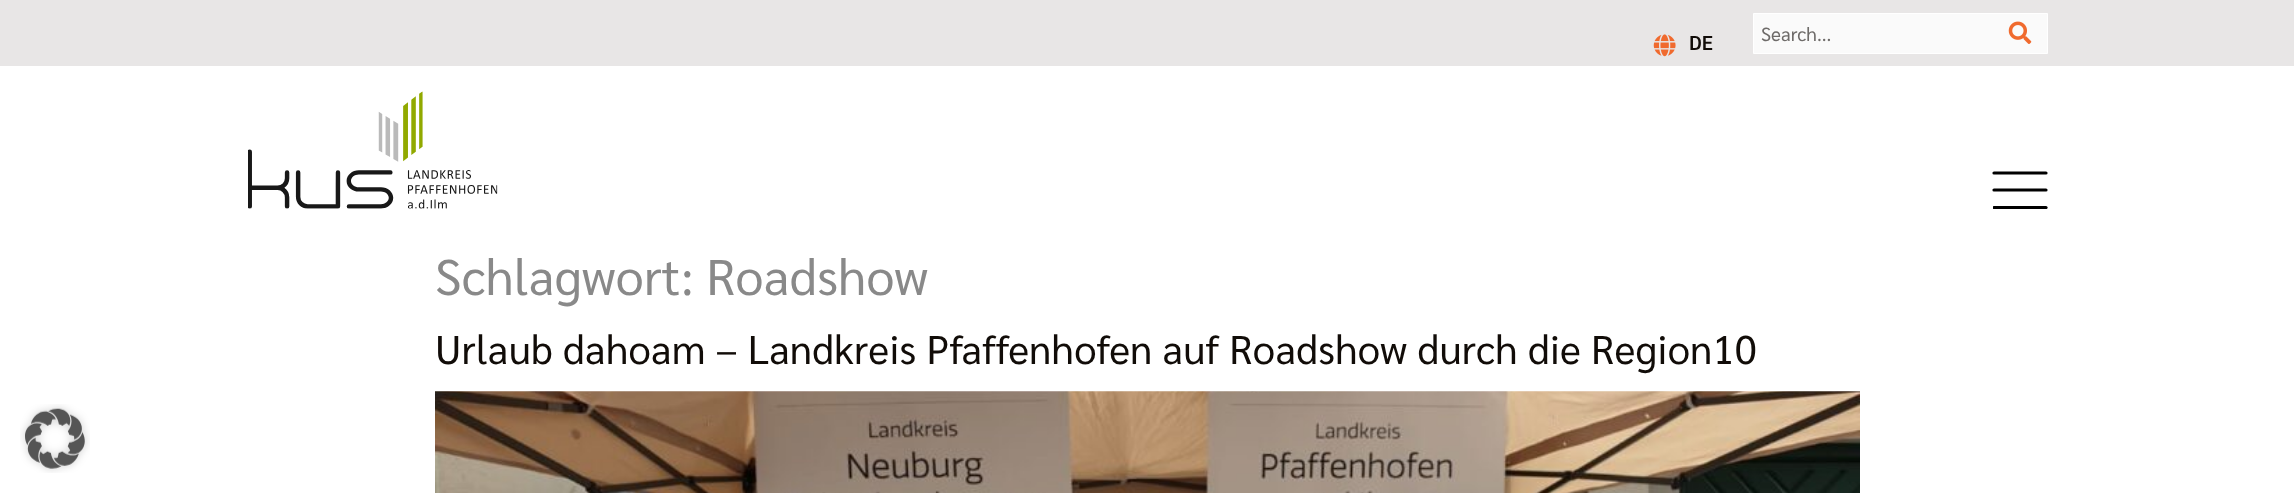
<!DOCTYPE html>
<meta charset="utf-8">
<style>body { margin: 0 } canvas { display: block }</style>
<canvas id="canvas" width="2294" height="493"></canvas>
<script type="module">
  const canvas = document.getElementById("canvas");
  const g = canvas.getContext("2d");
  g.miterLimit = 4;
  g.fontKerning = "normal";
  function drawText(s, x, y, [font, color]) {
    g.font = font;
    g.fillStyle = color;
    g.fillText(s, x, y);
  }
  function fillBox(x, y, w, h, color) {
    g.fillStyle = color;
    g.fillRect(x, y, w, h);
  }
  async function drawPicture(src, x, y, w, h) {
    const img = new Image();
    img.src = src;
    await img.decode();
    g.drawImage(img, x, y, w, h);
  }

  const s1 = ["600 20px Sarabun", "#110C08"];
  const s2 = ["19px Sarabun", "#6E6B69"];
  const s3 = ["50px Sarabun", "#898989"];
  const s4 = ["40px Sarabun", "#110C08"];

  fillBox(0, 0, 2294, 493, "#FFFFFF");
  fillBox(0, 0, 2294, 66, "#E8E6E6");
  await drawPicture("pic1.png", 1653, 34, 23, 23);
  drawText("DE", 1689, 50, s1);
  g.fillStyle = "#FAFAFA";
  g.beginPath();
  g.rect(1753.5, 13.5, 294, 40);
  g.fill();
  g.strokeStyle = "#FFFFFF";
  g.stroke();
  drawText("Search...", 1761, 41, s2);
  await drawPicture("pic2.png", 2008, 21, 24, 23);
  await drawPicture("pic3.png", 248, 91, 250, 118);
  g.beginPath();
  g.moveTo(1994, 190);
  g.lineTo(2046, 190);
  g.moveTo(1994, 173);
  g.lineTo(2046, 173);
  g.strokeStyle = "#000000";
  g.lineWidth = 3.2;
  g.lineCap = "round";
  g.lineJoin = "round";
  g.stroke();
  g.save();
  g.beginPath();
  g.rect(1993, 171, 55, 38);
  g.clip();
  g.beginPath();
  g.moveTo(1994, 207.5);
  g.lineTo(2046, 207.5);
  g.stroke();
  g.restore();
  g.letterSpacing = "0.3px";
  drawText("Schlagwort: Roadshow", 435, 295, s3);
  drawText("Urlaub dahoam – Landkreis Pfaffenhofen auf Roadshow durch die Region10", 435, 364, s4);
  await drawPicture("pic4.png", 435, 391, 1425, 102);
  await drawPicture("pic5.png", 20, 404, 70, 69);
</script>
